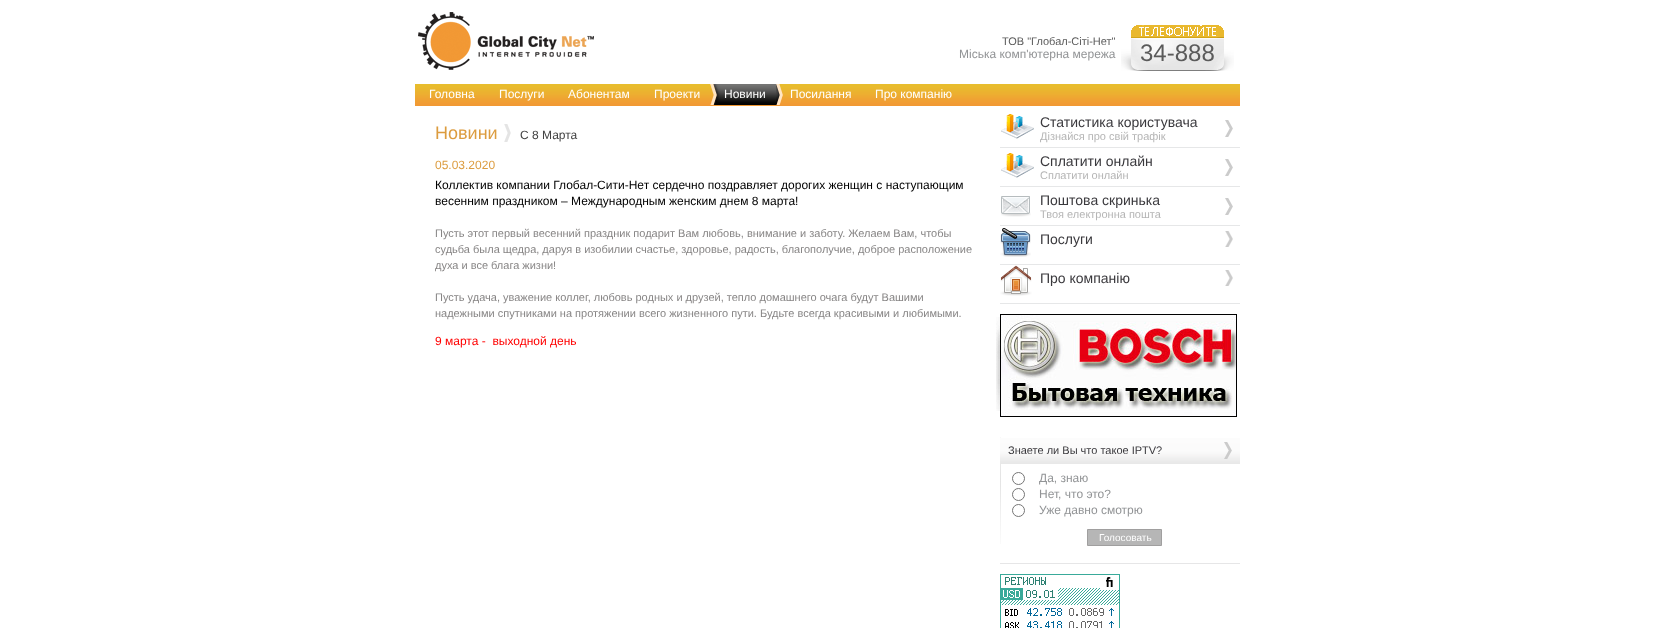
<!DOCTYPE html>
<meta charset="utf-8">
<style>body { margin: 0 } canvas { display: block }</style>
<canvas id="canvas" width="1655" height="628"></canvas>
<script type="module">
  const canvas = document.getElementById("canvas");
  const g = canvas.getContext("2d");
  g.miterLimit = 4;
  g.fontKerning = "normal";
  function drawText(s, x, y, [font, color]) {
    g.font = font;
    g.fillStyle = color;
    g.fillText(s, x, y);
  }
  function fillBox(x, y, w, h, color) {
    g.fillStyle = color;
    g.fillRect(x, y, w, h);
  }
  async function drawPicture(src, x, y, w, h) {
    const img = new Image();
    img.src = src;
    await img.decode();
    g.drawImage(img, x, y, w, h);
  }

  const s1 = ["11px Liberation Sans", "#5B5B5B"];
  const s2 = ["12px Liberation Sans", "#929496"];
  const s3 = ["24px Liberation Sans", "#5B5B5B"];
  const s4 = ["12px Liberation Sans", "#FFFFFF"];
  const s5 = ["18px Liberation Sans", "#DC9C3F"];
  const s6 = ["12px Liberation Sans", "#424242"];
  const s7 = ["12px Liberation Sans", "#DC9C3F"];
  const s8 = ["12px Liberation Sans", "#000000"];
  const s9 = ["11px Liberation Sans", "#878585"];
  const s10 = ["12px Liberation Sans", "#FF0000"];
  const s11 = ["14px Liberation Sans", "#3A393D"];
  const s12 = ["11px Liberation Sans", "#B5B5B5"];
  const s13 = ["11px Liberation Sans", "#3A393D"];
  const s14 = ["10px Liberation Sans", "#FFFFFF"];

  fillBox(0, 0, 1655, 628, "#FFFFFF");
  await drawPicture("pic1.png", 418, 12, 176, 58);
  drawText("ТОВ \"Глобал-Сіті-Нет\"", 1002, 45, s1);
  drawText("Міська комп'ютерна мережа", 959, 58, s2);
  await drawPicture("pic2.png", 1121, 25, 113, 46);
  drawText("34-888", 1140, 61, s3);
  await drawPicture("pic3.png", 415, 84, 825, 22);
  drawText("Головна", 429, 98, s4);
  drawText("Послуги", 499, 98, s4);
  drawText("Абонентам", 568, 98, s4);
  drawText("Проекти", 654, 98, s4);
  await drawPicture("pic4.png", 710, 84, 66, 21);
  drawText("Новини", 724, 98, s4);
  await drawPicture("pic5.png", 776, 84, 7, 21);
  drawText("Посилання", 790, 98, s4);
  drawText("Про компанію", 875, 98, s4);
  drawText("Новини", 435, 139, s5);
  await drawPicture("pic6.png", 504, 124, 7, 18);
  drawText("С 8 Марта", 520, 139, s6);
  drawText("05.03.2020", 435, 169, s7);
  drawText("Коллектив компании Глобал-Сити-Нет сердечно поздравляет дорогих женщин с наступающим", 435, 189, s8);
  drawText("весенним праздником – Международным женским днем 8 марта!", 435, 205, s8);
  drawText("Пусть этот первый весенний праздник подарит Вам любовь, внимание и заботу. Желаем Вам, чтобы", 435, 237, s9);
  drawText("судьба была щедра, даруя в изобилии счастье, здоровье, радость, благополучие, доброе расположение", 435, 253, s9);
  drawText("духа и все блага жизни!", 435, 269, s9);
  drawText("Пусть удача, уважение коллег, любовь родных и друзей, тепло домашнего очага будут Вашими", 435, 301, s9);
  drawText("надежными спутниками на протяжении всего жизненного пути. Будьте всегда красивыми и любимыми.", 435, 317, s9);
  drawText("9 марта -  выходной день", 435, 345, s10);
  fillBox(1000, 147, 240, 1, "#E6E7E8");
  await drawPicture("pic7.png", 1001, 114, 33, 25);
  await drawPicture("pic8.png", 1225, 120, 8, 17);
  drawText("Статистика користувача", 1040, 127, s11);
  drawText("Дізнайся про свій трафік", 1040, 140, s12);
  fillBox(1000, 186, 240, 1, "#E6E7E8");
  await drawPicture("pic7.png", 1001, 153, 33, 25);
  await drawPicture("pic8.png", 1225, 159, 8, 17);
  drawText("Сплатити онлайн", 1040, 166, s11);
  drawText("Сплатити онлайн", 1040, 179, s12);
  fillBox(1000, 225, 240, 1, "#E6E7E8");
  await drawPicture("pic9.png", 1001, 196, 30, 21);
  await drawPicture("pic8.png", 1225, 198, 8, 17);
  drawText("Поштова скринька", 1040, 205, s11);
  drawText("Твоя електронна пошта", 1040, 218, s12);
  fillBox(1000, 264, 240, 1, "#E6E7E8");
  await drawPicture("pic10.png", 1000, 228, 31, 29);
  await drawPicture("pic11.png", 1225, 231, 8, 16);
  drawText("Послуги", 1040, 244, s11);
  fillBox(1000, 303, 240, 1, "#E6E7E8");
  await drawPicture("pic12.png", 1000, 265, 32, 31);
  await drawPicture("pic11.png", 1225, 270, 8, 16);
  drawText("Про компанію", 1040, 283, s11);
  await drawPicture("pic13.png", 996, 317, 4, 94);
  await drawPicture("pic14.png", 1000, 314, 237, 103);
  await drawPicture("pic15.png", 1000, 437, 1, 107);
  fillBox(1000, 563, 240, 1, "#E6E6E7");
  await drawPicture("pic16.png", 1000, 438, 240, 26);
  drawText("Знаете ли Вы что такое IPTV?", 1008, 454, s13);
  g.beginPath();
  g.arc(1018.5, 478.5, 6, 0, Math.PI * 2);
  g.strokeStyle = "#767676";
  g.stroke();
  drawText("Да, знаю", 1039, 482, s2);
  g.beginPath();
  g.arc(1018.5, 494.5, 6, 0, Math.PI * 2);
  g.stroke();
  drawText("Нет, что это?", 1039, 498, s2);
  g.beginPath();
  g.arc(1018.5, 510.5, 6, 0, Math.PI * 2);
  g.stroke();
  drawText("Уже давно смотрю", 1039, 514, s2);
  g.fillStyle = "#B6B6B6";
  g.beginPath();
  g.rect(1087.5, 529.5, 74, 16);
  g.fill();
  g.strokeStyle = "#A09F9F";
  g.stroke();
  drawText("Голосовать", 1099, 541, s14);
  await drawPicture("pic17.png", 1000, 574, 120, 54);
</script>
